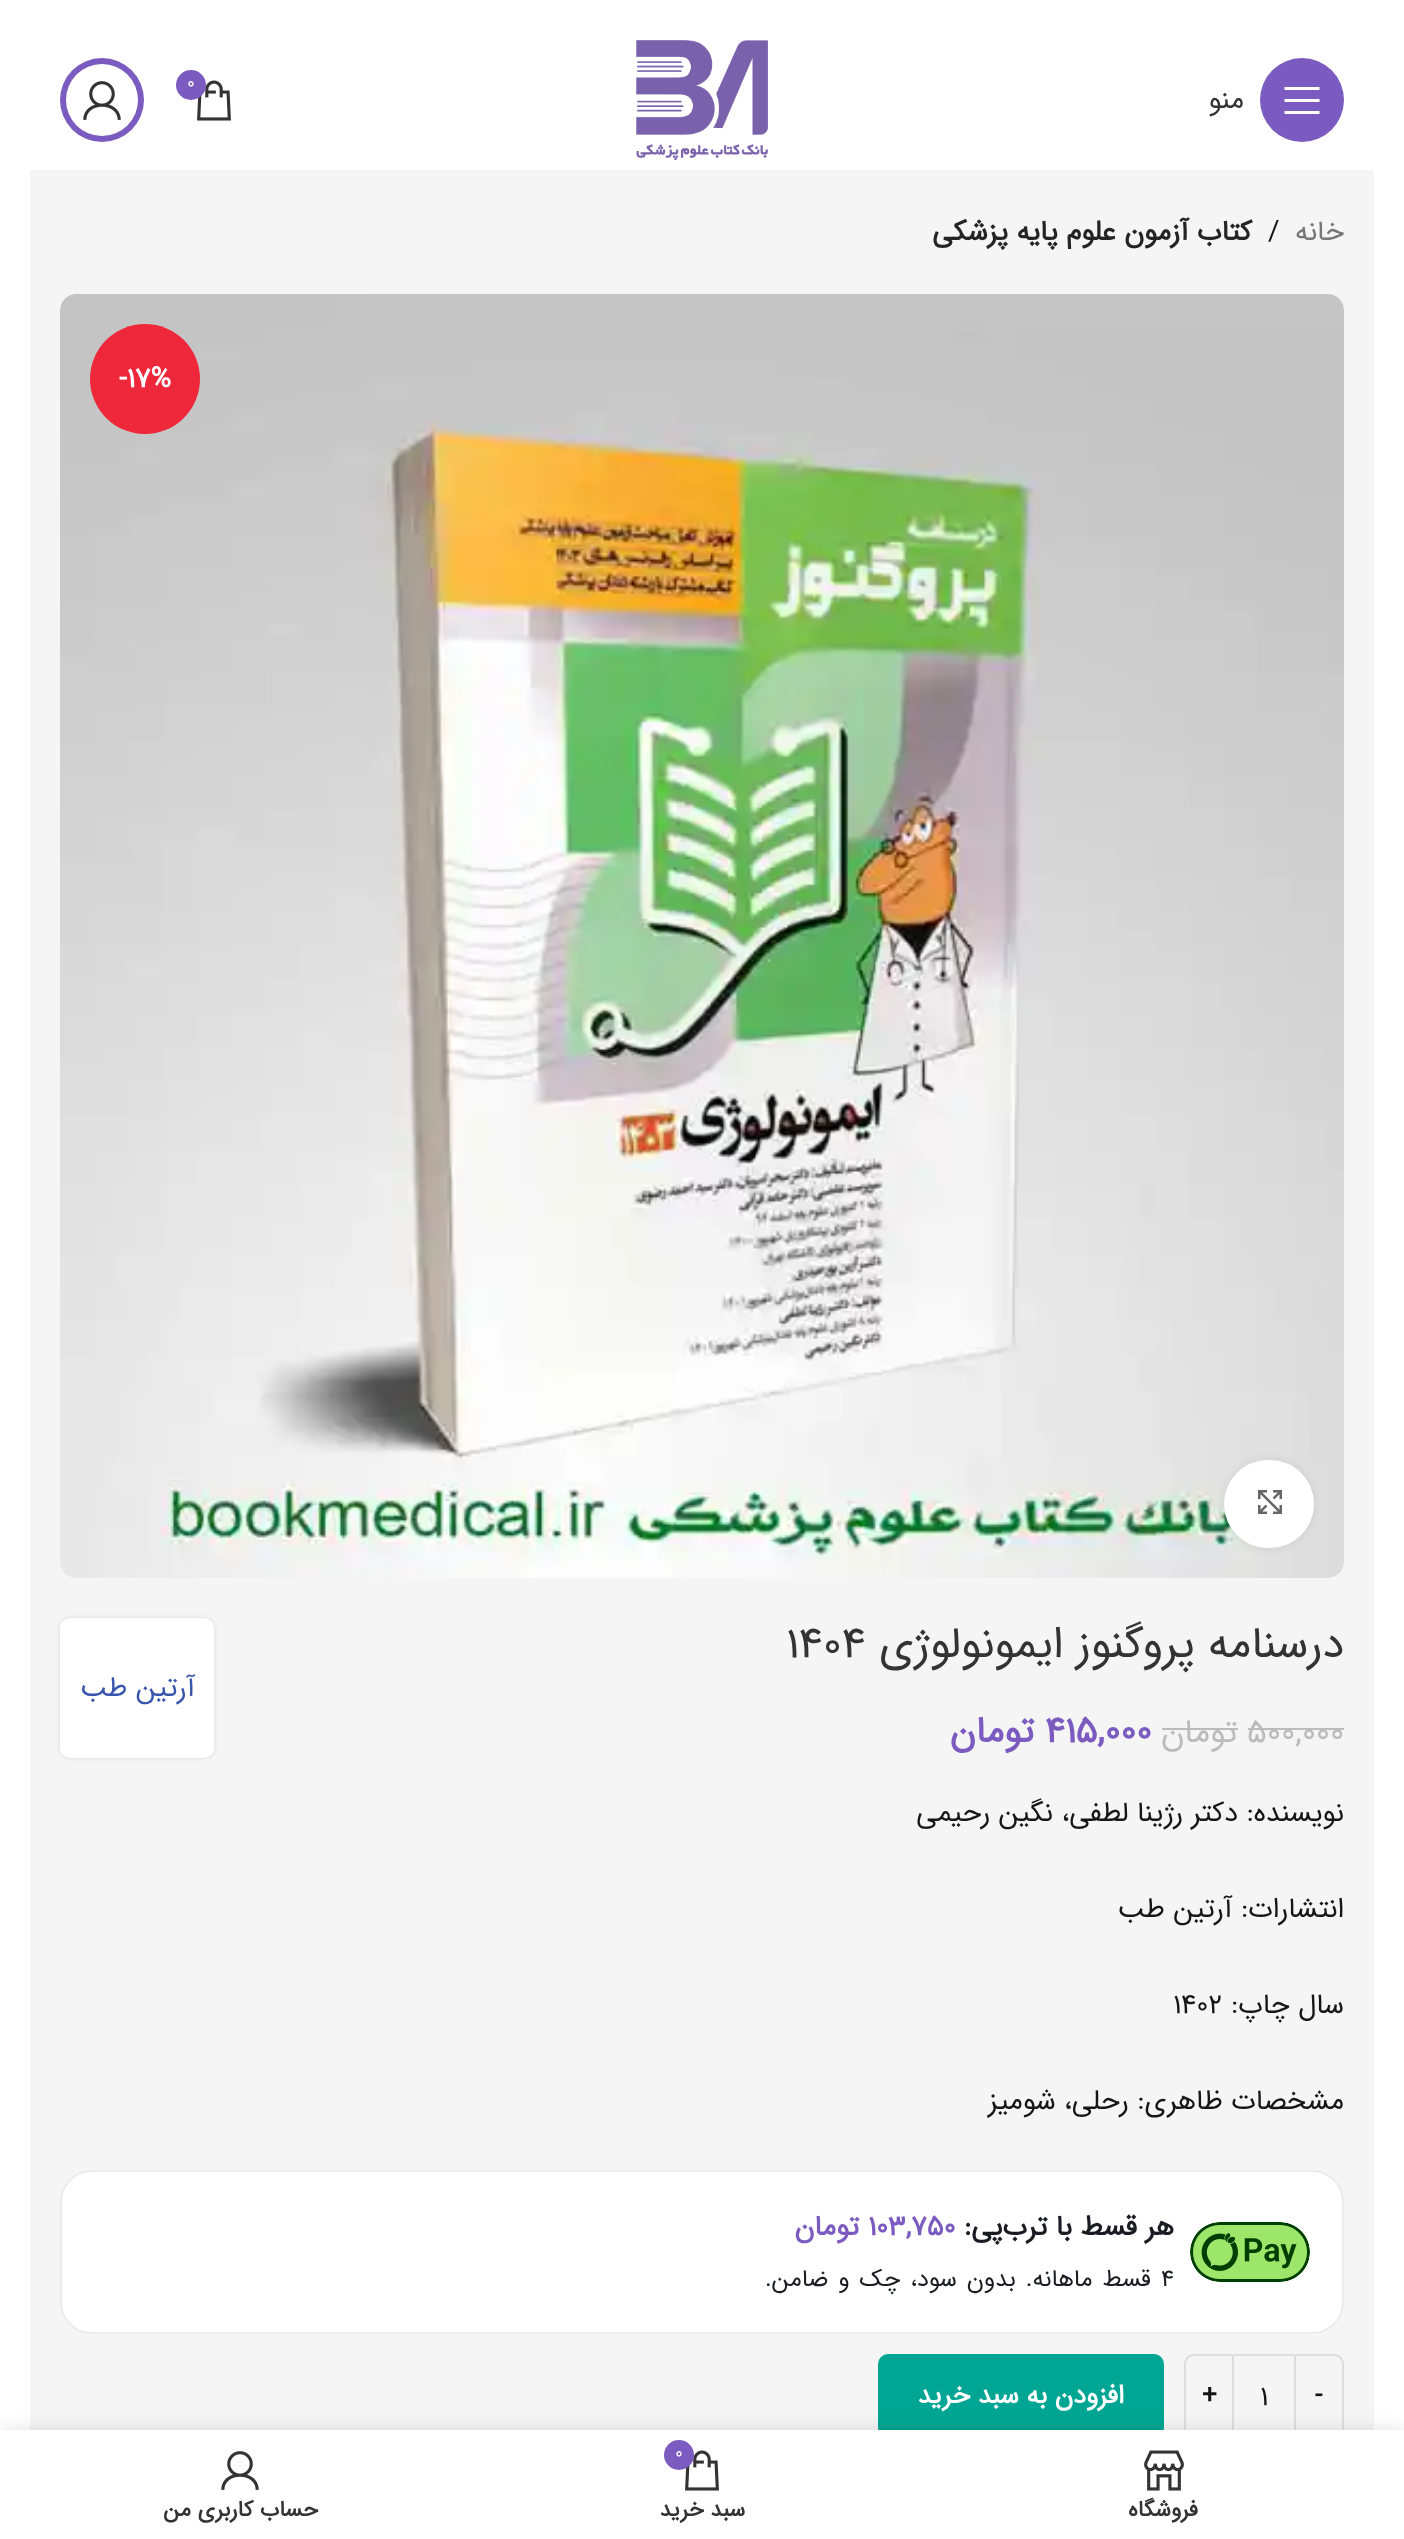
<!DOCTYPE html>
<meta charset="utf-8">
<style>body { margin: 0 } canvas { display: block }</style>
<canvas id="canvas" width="1404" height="2539"></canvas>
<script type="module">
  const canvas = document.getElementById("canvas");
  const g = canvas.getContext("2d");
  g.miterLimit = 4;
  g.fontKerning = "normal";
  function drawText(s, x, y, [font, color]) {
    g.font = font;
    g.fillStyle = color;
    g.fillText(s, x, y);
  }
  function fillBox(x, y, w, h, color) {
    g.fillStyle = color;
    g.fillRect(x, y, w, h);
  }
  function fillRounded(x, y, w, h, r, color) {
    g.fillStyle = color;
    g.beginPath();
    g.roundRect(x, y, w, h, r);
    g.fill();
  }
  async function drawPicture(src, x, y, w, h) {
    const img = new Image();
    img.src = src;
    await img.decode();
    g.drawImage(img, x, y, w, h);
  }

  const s1 = ["18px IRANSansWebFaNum", "#FFFFFF"];
  const s2 = ["28px IRANSansWebFaNum", "#333333"];
  const s3 = ["28px IRANSansWebFaNum", "#767676"];
  const s4 = ["28px IRANSansWebFaNum", "#161616"];
  const s5 = ["bold 28px IRANSansWebFaNum", "#242424"];
  const s6 = ["bold 28px IRANSansWebFaNum", "#FFFFFF"];
  const s7 = ["44px IRANSansWebFaNum", "#333333"];
  const s8 = ["28px IRANSansWebFaNum", "#3855AE"];
  const s9 = ["33px IRANSansWebFaNum", "#BBBBBB"];
  const s10 = ["bold 36.5px IRANSansWebFaNum", "#7C5BC0"];
  const s11 = ["bold 28px IRANSansWebFaNum", "#1A1C23"];
  const s12 = ["bold 28px IRANSansWebFaNum", "#7C5BC0"];
  const s13 = ["24px IRANSansWebFaNum", "#1A1C23"];
  const s14 = ["bold 26px IRANSansWebFaNum", "#161616"];
  const s15 = ["bold 26px IRANSansWebFaNum", "#FFFFFF"];
  const s16 = ["bold 22px IRANSansWebFaNum", "#333333"];

  fillBox(0, 0, 1404, 2539, "#FFFFFF");
  await drawPicture("pic1.png", 636, 40, 132, 120);
  await drawPicture("pic2.png", 197, 80, 34, 41);
  g.fillStyle = "#7C5BC0";
  g.beginPath();
  g.arc(191, 85, 15, 0, Math.PI * 2);
  g.fill();
  drawText("0", 187, 88, s1);
  g.fillStyle = "#7C5BC0";
  g.beginPath();
  g.arc(102, 100, 42, 0, Math.PI * 2);
  g.fill();
  g.fillStyle = "#FFFFFF";
  g.beginPath();
  g.arc(102, 100, 36, 0, Math.PI * 2);
  g.fill();
  await drawPicture("pic3.png", 83, 81, 38, 39);
  g.fillStyle = "#7C5BC0";
  g.beginPath();
  g.arc(1302, 100, 42, 0, Math.PI * 2);
  g.fill();
  g.fillStyle = "#FFFFFF";
  g.beginPath();
  g.moveTo(1284.5, 90);
  g.lineTo(1319.5, 90);
  g.lineTo(1319.5, 87);
  g.lineTo(1284.5, 87);
  g.closePath();
  g.moveTo(1284.5, 102);
  g.lineTo(1319.5, 102);
  g.lineTo(1319.5, 99);
  g.lineTo(1284.5, 99);
  g.closePath();
  g.moveTo(1284.5, 114);
  g.lineTo(1319.5, 114);
  g.lineTo(1319.5, 111);
  g.lineTo(1284.5, 111);
  g.closePath();
  g.fill();
  g.direction = "rtl";
  drawText("منو", 1244, 108, s2);
  fillBox(30, 170, 1344, 2260, "#F5F5F5");
  drawText("خانه", 1344, 240, s3);
  g.direction = "ltr";
  drawText("/", 1268, 240, s4);
  g.direction = "rtl";
  drawText("کتاب آزمون علوم پایه پزشکی", 1252, 240, s5);
  await drawPicture("pic4.png", 60, 294, 1284, 1284);
  g.fillStyle = "#EE273A";
  g.beginPath();
  g.arc(145, 379, 55, 0, Math.PI * 2);
  g.fill();
  g.direction = "ltr";
  drawText("-17%", 119, 387, s6);
  g.fillStyle = "rgba(0, 0, 0, 0.08)";
  g.filter = "blur(5px)";
  g.beginPath();
  g.roundRect(1224, 1460, 90, 88, 44);
  g.fill();
  g.filter = "none";
  fillRounded(1224, 1460, 90, 88, 44, "#FFFFFF");
  await drawPicture("pic5.png", 1258, 1490, 24, 24);
  g.direction = "rtl";
  drawText("درسنامه پروگنوز ایمونولوژی", 1344, 1657, s7);
  g.direction = "ltr";
  drawText("1404", 786, 1657, s7);
  g.fillStyle = "rgba(0, 0, 0, 0.12)";
  g.filter = "blur(2px)";
  g.beginPath();
  g.roundRect(60, 1618, 154, 140, 10);
  g.fill();
  g.filter = "none";
  fillRounded(60, 1618, 154, 140, 10, "#FFFFFF");
  g.direction = "rtl";
  drawText("آرتین طب", 195, 1696, s8);
  g.direction = "ltr";
  drawText("۵۰۰,۰۰۰", 1247, 1742, s9);
  fillBox(1248, 1728, 96, 2, "#BBBBBB");
  g.direction = "rtl";
  drawText("تومان", 1237, 1742, s9);
  fillBox(1162, 1728, 76, 2, "#BBBBBB");
  g.direction = "ltr";
  drawText("۴۱۵,۰۰۰", 1045, 1742, s10);
  g.direction = "rtl";
  drawText("تومان", 1034, 1742, s10);
  drawText("نویسنده: دکتر رژینا لطفی، نگین رحیمی", 1344, 1821, s4);
  drawText("انتشارات: آرتین طب", 1344, 1917, s4);
  drawText("سال چاپ:", 1344, 2013, s4);
  g.direction = "ltr";
  drawText("1402", 1173, 2013, s4);
  g.direction = "rtl";
  drawText("مشخصات ظاهری: رحلی، شومیز", 1344, 2109, s4);
  g.fillStyle = "#FFFFFF";
  g.beginPath();
  g.roundRect(61, 2171, 1282, 162, 31);
  g.fill();
  g.strokeStyle = "#EBECF2";
  g.lineWidth = 2;
  g.stroke();
  await drawPicture("pic6.png", 1190, 2222, 120, 60);
  drawText("هر قسط با ترب‌پی:", 1174, 2235, s11);
  g.direction = "ltr";
  drawText("۱۰۳,۷۵۰", 868, 2235, s12);
  g.direction = "rtl";
  drawText("تومان", 859, 2235, s12);
  g.letterSpacing = "-0.75px";
  g.direction = "ltr";
  drawText("۴", 1161, 2286, s13);
  g.wordSpacing = "3.5px";
  g.direction = "rtl";
  drawText("قسط ماهانه. بدون سود، چک و ضامن.", 1151, 2286, s13);
  g.beginPath();
  g.roundRect(1295, 2355, 48, 82, [0, 9, 9, 0]);
  g.strokeStyle = "#DDDDDD";
  g.stroke();
  g.letterSpacing = "0px";
  g.wordSpacing = "0px";
  g.direction = "ltr";
  drawText("-", 1315, 2403, s14);
  fillBox(1234, 2354, 60, 2, "#DDDDDD");
  drawText("1", 1260, 2405, s4);
  g.beginPath();
  g.roundRect(1185, 2355, 48, 82, [9, 0, 0, 9]);
  g.stroke();
  drawText("+", 1202, 2403, s14);
  fillRounded(878, 2354, 286, 84, 10, "#00A693");
  g.direction = "rtl";
  drawText("افزودن به سبد خرید", 1124, 2403, s15);
  g.fillStyle = "rgba(0, 0, 0, 0.12)";
  g.filter = "blur(9px)";
  g.beginPath();
  g.rect(0, 2430, 1404, 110);
  g.fill();
  g.filter = "none";
  fillBox(0, 2430, 1404, 109, "#FFFFFF");
  await drawPicture("pic7.png", 1144, 2450, 40, 41);
  drawText("فروشگاه", 1198, 2516, s16);
  await drawPicture("pic2.png", 685, 2450, 34, 41);
  g.fillStyle = "#7C5BC0";
  g.beginPath();
  g.arc(679, 2455, 15, 0, Math.PI * 2);
  g.fill();
  g.direction = "ltr";
  drawText("0", 675, 2458, s1);
  g.direction = "rtl";
  drawText("سبد خرید", 745, 2516, s16);
  await drawPicture("pic3.png", 221, 2451, 38, 39);
  drawText("حساب کاربری من", 318, 2516, s16);
</script>
